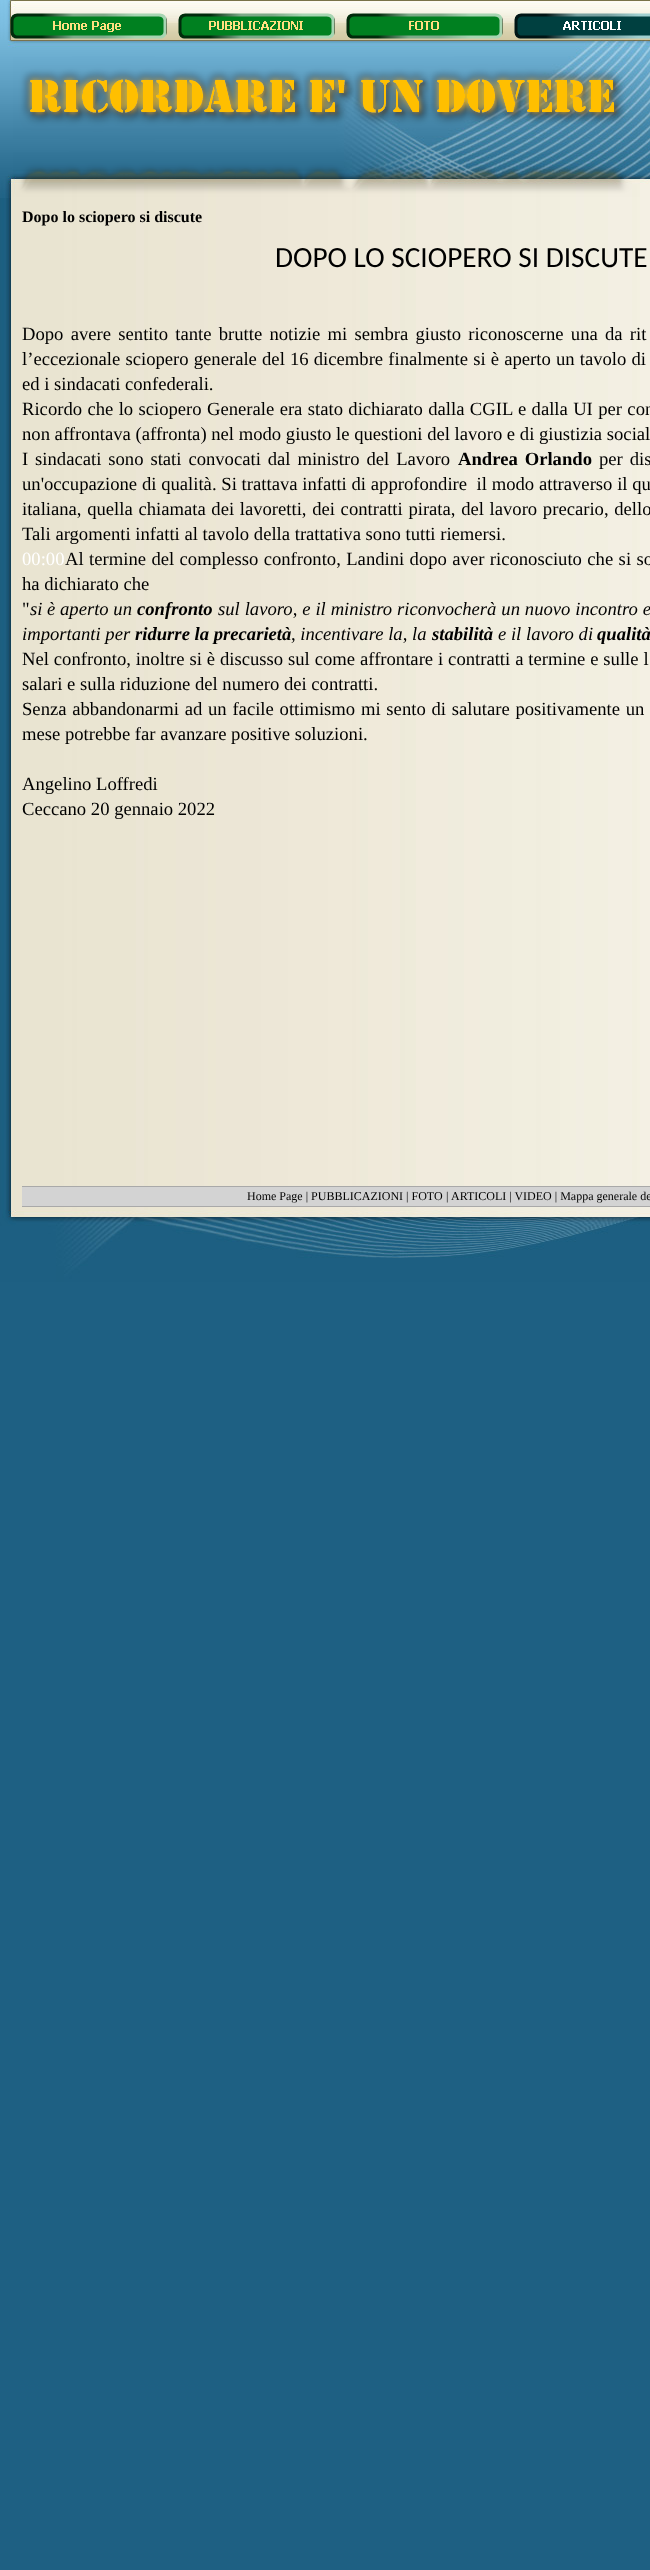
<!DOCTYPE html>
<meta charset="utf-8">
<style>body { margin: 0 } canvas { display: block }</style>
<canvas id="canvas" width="650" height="2570"></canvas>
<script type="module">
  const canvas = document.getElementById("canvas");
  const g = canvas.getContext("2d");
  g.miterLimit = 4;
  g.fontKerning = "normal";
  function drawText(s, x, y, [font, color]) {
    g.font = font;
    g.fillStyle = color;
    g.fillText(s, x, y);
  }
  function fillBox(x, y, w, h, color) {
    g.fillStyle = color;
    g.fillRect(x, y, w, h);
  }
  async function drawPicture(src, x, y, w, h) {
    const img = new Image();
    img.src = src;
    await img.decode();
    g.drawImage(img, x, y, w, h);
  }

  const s1 = ["bold 16px Liberation Serif", "#000000"];
  const s2 = ["29.3px Carlito", "#000000"];
  const s3 = ["18.65px Liberation Serif", "#000000"];
  const s4 = ["bold 18.65px Liberation Serif", "#000000"];
  const s5 = ["18.65px Liberation Serif", "#FFFFFF"];
  const s6 = ["italic 18.65px Liberation Serif", "#000000"];
  const s7 = ["italic bold 18.65px Liberation Serif", "#000000"];
  const s8 = ["12px Liberation Serif", "#000000"];

  fillBox(0, 0, 650, 2570, "#FFFFFF");
  await drawPicture("pic1.png", 0, 1282, 650, 1288);
  await drawPicture("pic2.png", 0, 0, 650, 40);
  await drawPicture("pic3.png", 10, 13, 157, 26);
  await drawPicture("pic4.png", 178, 13, 157, 26);
  await drawPicture("pic5.png", 346, 13, 157, 26);
  await drawPicture("pic6.png", 514, 13, 136, 26);
  await drawPicture("pic7.png", 0, 40, 650, 158);
  await drawPicture("pic8.png", 0, 198, 650, 1012);
  drawText("Dopo lo sciopero si discute", 22, 222, s1);
  drawText("DOPO LO SCIOPERO SI DISCUTE", 275, 267, s2);
  g.wordSpacing = "2.6px";
  drawText("Dopo avere sentito tante brutte notizie mi sembra giusto riconoscerne una da rit", 22, 340, s3);
  g.wordSpacing = "0.5px";
  drawText("l’eccezionale sciopero generale del 16 dicembre finalmente si è aperto un tavolo di", 22, 365, s3);
  g.wordSpacing = "0px";
  drawText("ed i sindacati confederali.", 22, 390, s3);
  g.wordSpacing = "0.7px";
  drawText("Ricordo che lo sciopero Generale era stato dichiarato dalla CGIL e dalla UI per con", 22, 415, s3);
  g.wordSpacing = "0px";
  drawText("non affrontava (affronta) nel modo giusto le questioni del lavoro e di giustizia social", 22, 440, s3);
  g.wordSpacing = "2.25px";
  drawText("I sindacati sono stati convocati dal ministro del Lavoro", 22, 465, s3);
  drawText("Andrea Orlando", 458, 465, s4);
  drawText("per dis", 599, 465, s3);
  g.wordSpacing = "0.1px";
  drawText("un'occupazione di qualità. Si trattava infatti di approfondire  il modo attraverso il qu", 22, 490, s3);
  g.wordSpacing = "1px";
  drawText("italiana, quella chiamata dei lavoretti, dei contratti pirata, del lavoro precario, dello", 22, 515, s3);
  g.wordSpacing = "0px";
  drawText("Tali argomenti infatti al tavolo della trattativa sono tutti riemersi.", 22, 540, s3);
  drawText("00:00", 22, 565, s5);
  g.wordSpacing = "0.75px";
  drawText("Al termine del complesso confronto, Landini dopo aver riconosciuto che si so", 65, 565, s3);
  g.wordSpacing = "0px";
  drawText("ha dichiarato che", 22, 590, s3);
  drawText("\"", 22, 615, s3);
  drawText("si è aperto un", 30, 615, s6);
  drawText("confronto", 137, 615, s7);
  g.wordSpacing = "0.25px";
  drawText("sul lavoro, e il ministro riconvocherà un nuovo incontro e", 218, 615, s6);
  g.wordSpacing = "0px";
  drawText("importanti per", 22, 640, s6);
  drawText("ridurre la precarietà", 135, 640, s7);
  drawText(", incentivare la, la", 291, 640, s6);
  drawText("stabilità", 432, 640, s7);
  drawText("e il lavoro di", 498, 640, s6);
  drawText("qualità", 597, 640, s7);
  g.wordSpacing = "0.25px";
  drawText("Nel confronto, inoltre si è discusso sul come affrontare i contratti a termine e sulle l", 22, 665, s3);
  g.wordSpacing = "0px";
  drawText("salari e sulla riduzione del numero dei contratti.", 22, 690, s3);
  g.wordSpacing = "1.1px";
  drawText("Senza abbandonarmi ad un facile ottimismo mi sento di salutare positivamente un", 22, 715, s3);
  g.wordSpacing = "0px";
  drawText("mese potrebbe far avanzare positive soluzioni.", 22, 740, s3);
  drawText("Angelino Loffredi", 22, 790, s3);
  drawText("Ceccano 20 gennaio 2022", 22, 815, s3);
  fillBox(22, 1187, 628, 19, "#D3D3D3");
  fillBox(22, 1186, 628, 1, "#A9A9A9");
  fillBox(22, 1206, 628, 1, "#A9A9A9");
  drawText("Home Page | PUBBLICAZIONI | FOTO", 247, 1200, s8);
  drawText("|", 446, 1200, s8);
  drawText("ARTICOLI | VIDEO | Mappa generale de", 451, 1200, s8);
  await drawPicture("pic9.png", 0, 1210, 650, 72);
</script>
